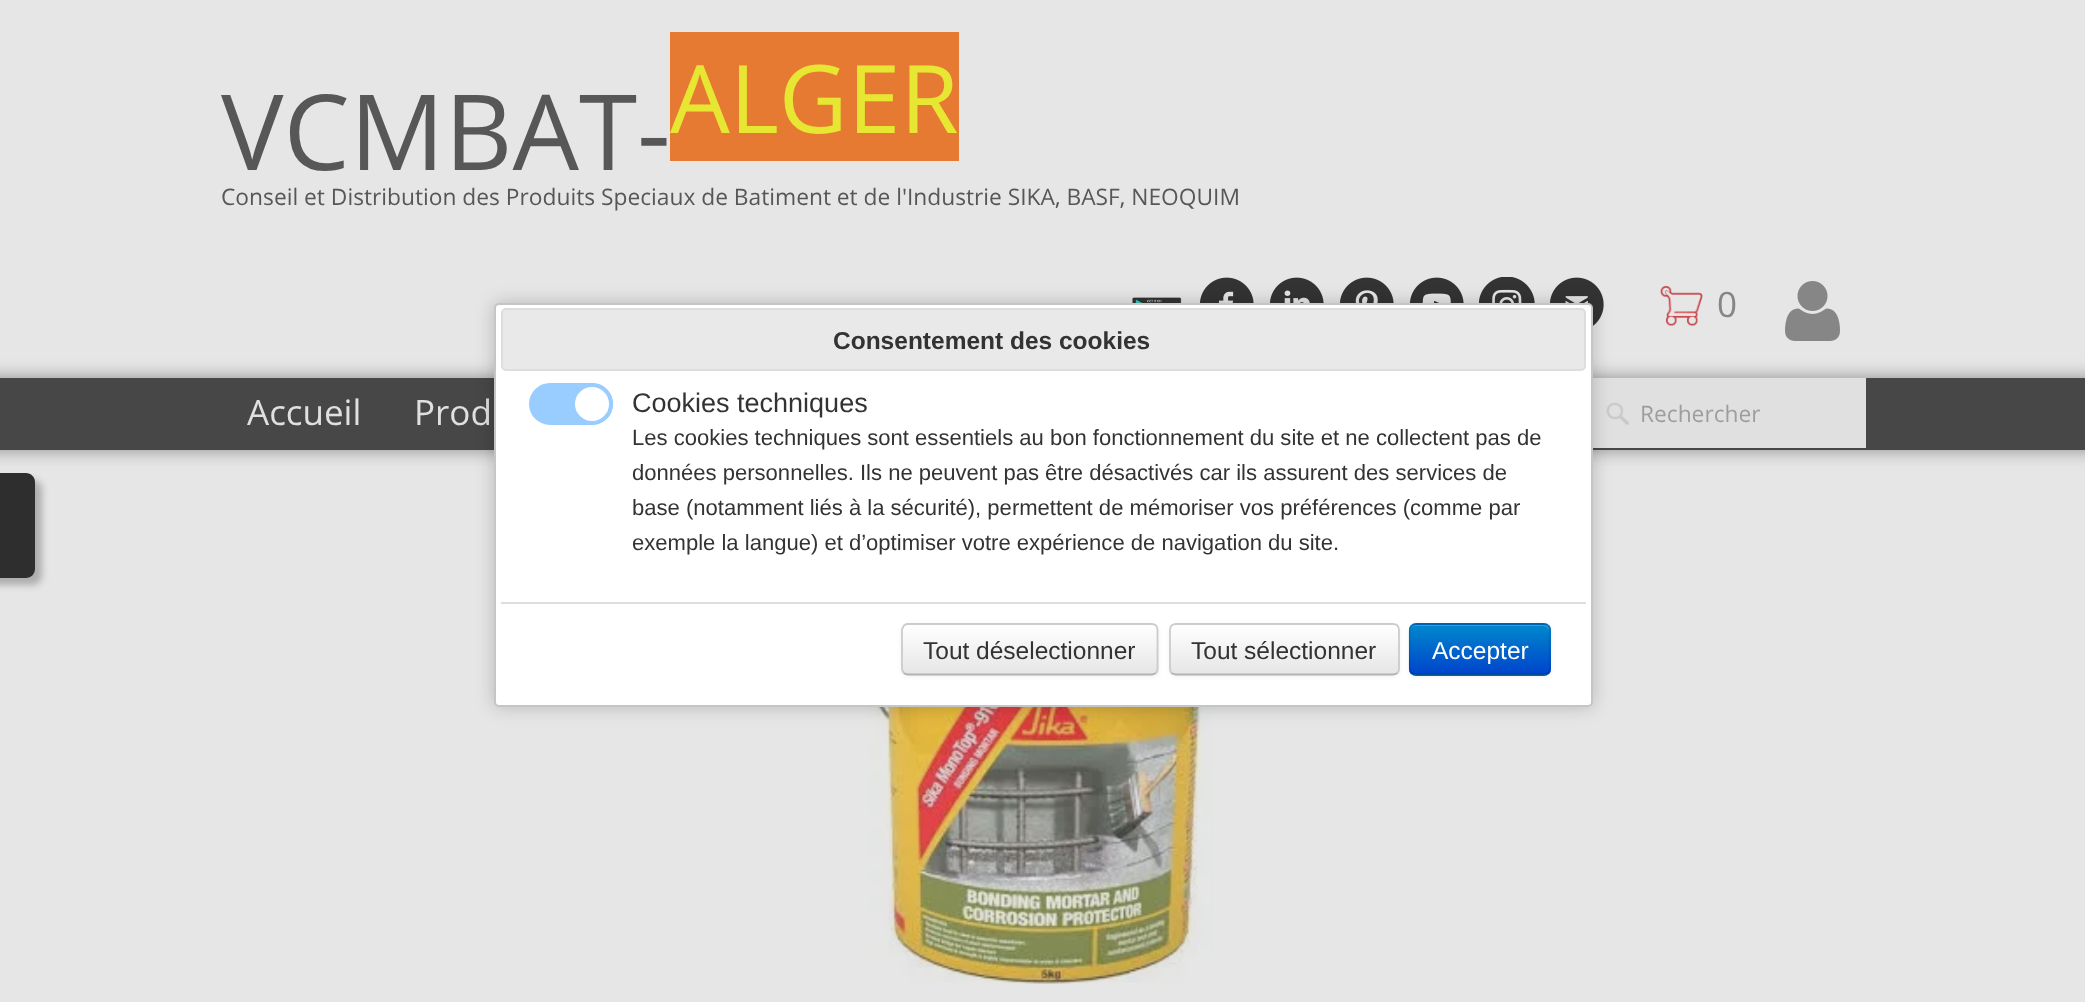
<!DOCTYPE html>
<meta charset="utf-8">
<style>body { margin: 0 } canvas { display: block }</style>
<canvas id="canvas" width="2085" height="1002"></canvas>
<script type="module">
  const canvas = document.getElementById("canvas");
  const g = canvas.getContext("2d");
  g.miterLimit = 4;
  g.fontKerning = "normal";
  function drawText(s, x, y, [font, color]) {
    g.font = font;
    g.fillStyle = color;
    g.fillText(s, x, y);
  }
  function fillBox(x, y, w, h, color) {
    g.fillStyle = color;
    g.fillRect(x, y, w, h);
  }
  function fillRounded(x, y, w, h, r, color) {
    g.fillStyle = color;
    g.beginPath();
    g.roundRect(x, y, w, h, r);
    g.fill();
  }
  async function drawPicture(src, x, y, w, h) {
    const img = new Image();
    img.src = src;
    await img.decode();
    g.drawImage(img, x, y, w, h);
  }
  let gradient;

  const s1 = ["105px Open Sans", "#575757"];
  const s2 = ["94.5px Open Sans", "#E6E633"];
  const s3 = ["22.75px Open Sans", "#575757"];
  const s4 = ["35px Open Sans", "#868686"];
  const s5 = ["35px Open Sans", "#E0E0E0"];
  const s6 = ["22.75px Open Sans", "#9E9E9E"];
  const s7 = ["bold 24.5px Liberation Sans", "#333333"];
  const s8 = ["27px Liberation Sans", "#333333"];
  const s9 = ["22.05px Liberation Sans", "#333333"];
  const s10 = ["24.5px Liberation Sans", "#333333"];
  const s11 = ["24.5px Liberation Sans", "#FFFFFF"];

  fillBox(0, 0, 2085, 1002, "#E6E6E6");
  drawText("VCMBAT-", 221, 170, s1);
  fillBox(670, 32, 289, 129, "#E67A33");
  drawText("ALGER", 670, 133, s2);
  drawText("Conseil et Distribution des Produits Speciaux de Batiment et de l'Industrie SIKA, BASF, NEOQUIM", 221, 205, s3);
  await drawPicture("pic1.png", 1132, 297, 50, 6);
  await drawPicture("pic2.png", 1199, 277, 55, 26);
  await drawPicture("pic3.png", 1269, 277, 55, 26);
  await drawPicture("pic4.png", 1339, 277, 55, 26);
  await drawPicture("pic5.png", 1409, 277, 55, 26);
  await drawPicture("pic6.png", 1479, 277, 56, 26);
  await drawPicture("pic7.png", 1549, 277, 55, 49);
  await drawPicture("pic8.png", 1660, 285, 43, 41);
  drawText("0", 1717, 317, s4);
  await drawPicture("pic9.png", 1785, 281, 55, 60);
  g.fillStyle = "rgba(51, 51, 51, 0.5)";
  g.filter = "blur(9px)";
  g.beginPath();
  g.roundRect(-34, 378, 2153, 72, 7);
  g.fill();
  g.filter = "none";
  fillBox(0, 378, 2085, 72, "#474747");
  drawText("Accueil", 247, 425, s5);
  drawText("Prod", 414, 425, s5);
  fillBox(1593, 378, 273, 70, "#E0E0E0");
  await drawPicture("pic10.png", 1606, 402, 24, 24);
  drawText("Rechercher", 1640, 422, s6);
  await drawPicture("pic11.png", 861, 707, 366, 277);
  g.save();
  g.beginPath();
  g.moveTo(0, 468);
  g.lineTo(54, 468);
  g.lineTo(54, 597);
  g.lineTo(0, 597);
  g.closePath();
  g.moveTo(-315, 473);
  g.lineTo(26, 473);
  g.bezierCurveTo(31, 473, 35, 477, 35, 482);
  g.lineTo(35, 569);
  g.bezierCurveTo(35, 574, 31, 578, 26, 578);
  g.lineTo(-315, 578);
  g.closePath();
  g.clip("evenodd");
  g.fillStyle = "rgba(121, 119, 119, 0.51)";
  g.filter = "blur(3.5px)";
  g.beginPath();
  g.roundRect(-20, 480, 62, 105, 9);
  g.fill();
  g.filter = "none";
  g.restore();
  g.fillStyle = "rgba(0, 0, 0, 0.8)";
  g.beginPath();
  g.moveTo(-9, 473);
  g.lineTo(26, 473);
  g.bezierCurveTo(31, 473, 35, 477, 35, 482);
  g.lineTo(35, 569);
  g.bezierCurveTo(35, 574, 31, 578, 26, 578);
  g.lineTo(-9, 578);
  g.closePath();
  g.fill();
  g.fillStyle = "rgba(0, 0, 0, 0.2)";
  g.filter = "blur(9px)";
  g.beginPath();
  g.roundRect(494, 303, 1099, 404, 5);
  g.fill();
  g.filter = "none";
  g.fillStyle = "#FFFFFF";
  g.beginPath();
  g.roundRect(495, 304, 1097, 402, 4);
  g.fill();
  g.strokeStyle = "#C5C5C5";
  g.lineWidth = 2;
  g.stroke();
  g.fillStyle = "#E9E9E9";
  g.beginPath();
  g.roundRect(502, 309, 1083, 61, 4);
  g.fill();
  g.strokeStyle = "#DDDDDD";
  g.stroke();
  drawText("Consentement des cookies", 833, 349, s7);
  g.fillStyle = "#99CCFF";
  g.beginPath();
  g.roundRect(531, 385, 80, 38, 19);
  g.fill();
  g.strokeStyle = "#99CCFF";
  g.lineWidth = 4;
  g.stroke();
  g.fillStyle = "#FFFFFF";
  g.beginPath();
  g.arc(592, 404, 19, 0, Math.PI * 2);
  g.fill();
  g.stroke();
  drawText("Cookies techniques", 632, 412, s8);
  drawText("Les cookies techniques sont essentiels au bon fonctionnement du site et ne collectent pas de", 632, 445, s9);
  drawText("données personnelles. Ils ne peuvent pas être désactivés car ils assurent des services de", 632, 480, s9);
  drawText("base (notamment liés à la sécurité), permettent de mémoriser vos préférences (comme par", 632, 515, s9);
  drawText("exemple la langue) et d’optimiser votre expérience de navigation du site.", 632, 550, s9);
  fillBox(501, 602, 1085, 2, "#DDDDDD");
  g.fillStyle = "rgba(0, 0, 0, 0.05)";
  g.filter = "blur(2px)";
  g.beginPath();
  g.roundRect(901, 625, 258, 52, 7);
  g.fill();
  g.filter = "none";
  fillRounded(901, 623, 258, 53, 7, "#F5F5F5");
  g.save();
  g.beginPath();
  g.roundRect(901, 623, 258, 53, 7);
  g.clip();
  gradient = g.createLinearGradient(1030, 625, 1030, 674);
  gradient.addColorStop(0, "#FFFFFF");
  gradient.addColorStop(1, "#E6E6E6");
  g.fillStyle = gradient;
  g.fillRect(901, 625, 258, 49);
  g.restore();
  g.beginPath();
  g.moveTo(1156, 673);
  g.bezierCurveTo(1154.5, 674, 1153, 674.5, 1151.5, 674.5);
  g.lineTo(908, 674.5);
  g.bezierCurveTo(906.5, 674.5, 905, 674, 904, 673);
  g.strokeStyle = "#B3B3B3";
  g.lineWidth = 1.8;
  g.stroke();
  g.beginPath();
  g.moveTo(904, 673);
  g.bezierCurveTo(903, 671.5, 902, 670, 902, 668.5);
  g.lineTo(902, 630);
  g.bezierCurveTo(902, 628.5, 903, 627, 904, 625.5);
  g.bezierCurveTo(905, 624.5, 906.5, 624, 908, 624);
  g.lineTo(1151.5, 624);
  g.bezierCurveTo(1153, 624, 1154.5, 624.5, 1156, 625.5);
  g.bezierCurveTo(1157, 627, 1157.5, 628.5, 1157.5, 630);
  g.lineTo(1157.5, 668.5);
  g.bezierCurveTo(1157.5, 670, 1157, 671.5, 1156, 673);
  g.strokeStyle = "#CCCCCC";
  g.stroke();
  drawText("Tout déselectionner", 923, 659, s10);
  g.fillStyle = "rgba(0, 0, 0, 0.05)";
  g.filter = "blur(2px)";
  g.beginPath();
  g.roundRect(1169, 625, 231, 52, 7);
  g.fill();
  g.filter = "none";
  fillRounded(1169, 623, 231, 53, 7, "#F5F5F5");
  g.save();
  g.beginPath();
  g.roundRect(1169, 623, 231, 53, 7);
  g.clip();
  gradient = g.createLinearGradient(1285, 625, 1285, 674);
  gradient.addColorStop(0, "#FFFFFF");
  gradient.addColorStop(1, "#E6E6E6");
  g.fillStyle = gradient;
  g.fillRect(1169, 625, 231, 49);
  g.restore();
  g.beginPath();
  g.moveTo(1397.5, 673);
  g.bezierCurveTo(1396, 674, 1394.5, 674.5, 1393, 674.5);
  g.lineTo(1176, 674.5);
  g.bezierCurveTo(1174.5, 674.5, 1173, 674, 1171.5, 673);
  g.strokeStyle = "#B3B3B3";
  g.stroke();
  g.beginPath();
  g.moveTo(1171.5, 673);
  g.bezierCurveTo(1170.5, 671.5, 1170, 670, 1170, 668.5);
  g.lineTo(1170, 630);
  g.bezierCurveTo(1170, 628.5, 1170.5, 627, 1171.5, 625.5);
  g.bezierCurveTo(1173, 624.5, 1174.5, 624, 1176, 624);
  g.lineTo(1393, 624);
  g.bezierCurveTo(1394.5, 624, 1396, 624.5, 1397.5, 625.5);
  g.bezierCurveTo(1398.5, 627, 1399, 628.5, 1399, 630);
  g.lineTo(1399, 668.5);
  g.bezierCurveTo(1399, 670, 1398.5, 671.5, 1397.5, 673);
  g.strokeStyle = "#CCCCCC";
  g.stroke();
  drawText("Tout sélectionner", 1191, 659, s10);
  g.fillStyle = "rgba(0, 0, 0, 0.05)";
  g.filter = "blur(2px)";
  g.beginPath();
  g.roundRect(1409, 625, 142, 52, 7);
  g.fill();
  g.filter = "none";
  fillRounded(1409, 623, 142, 53, 7, "#006DCC");
  g.save();
  g.beginPath();
  g.roundRect(1409, 623, 142, 53, 7);
  g.clip();
  gradient = g.createLinearGradient(1480, 625, 1480, 674);
  gradient.addColorStop(0, "#0088CC");
  gradient.addColorStop(1, "#0044CC");
  g.fillStyle = gradient;
  g.fillRect(1409, 625, 142, 49);
  g.restore();
  g.fillStyle = "rgba(255, 255, 255, 0.2)";
  g.beginPath();
  g.moveTo(1416, 626);
  g.lineTo(1544, 626);
  g.bezierCurveTo(1546, 626, 1549, 629, 1549, 632);
  g.lineTo(1549, 630);
  g.bezierCurveTo(1549, 627, 1547, 625, 1544, 625);
  g.lineTo(1416, 625);
  g.bezierCurveTo(1414, 625, 1412, 627, 1411, 629);
  g.bezierCurveTo(1412, 627, 1414, 626, 1416, 626);
  g.closePath();
  g.fill();
  g.beginPath();
  g.moveTo(1548, 673);
  g.bezierCurveTo(1546.5, 674, 1545, 674.5, 1543.5, 674.5);
  g.lineTo(1416, 674.5);
  g.bezierCurveTo(1414, 674.5, 1412.5, 674, 1411.5, 673);
  g.strokeStyle = "rgba(0, 0, 0, 0.25)";
  g.stroke();
  g.beginPath();
  g.moveTo(1411.5, 673);
  g.bezierCurveTo(1408.5, 670, 1409.5, 665.5, 1409.5, 662);
  g.lineTo(1409.5, 649);
  g.bezierCurveTo(1409.5, 619.5, 1405.5, 624, 1437, 624);
  g.lineTo(1522, 624);
  g.bezierCurveTo(1553.5, 624, 1549.5, 619.5, 1549.5, 649);
  g.lineTo(1549.5, 662);
  g.bezierCurveTo(1549.5, 665.5, 1550.5, 670, 1548, 673);
  g.strokeStyle = "rgba(0, 0, 0, 0.1)";
  g.stroke();
  drawText("Accepter", 1432, 659, s11);
</script>
